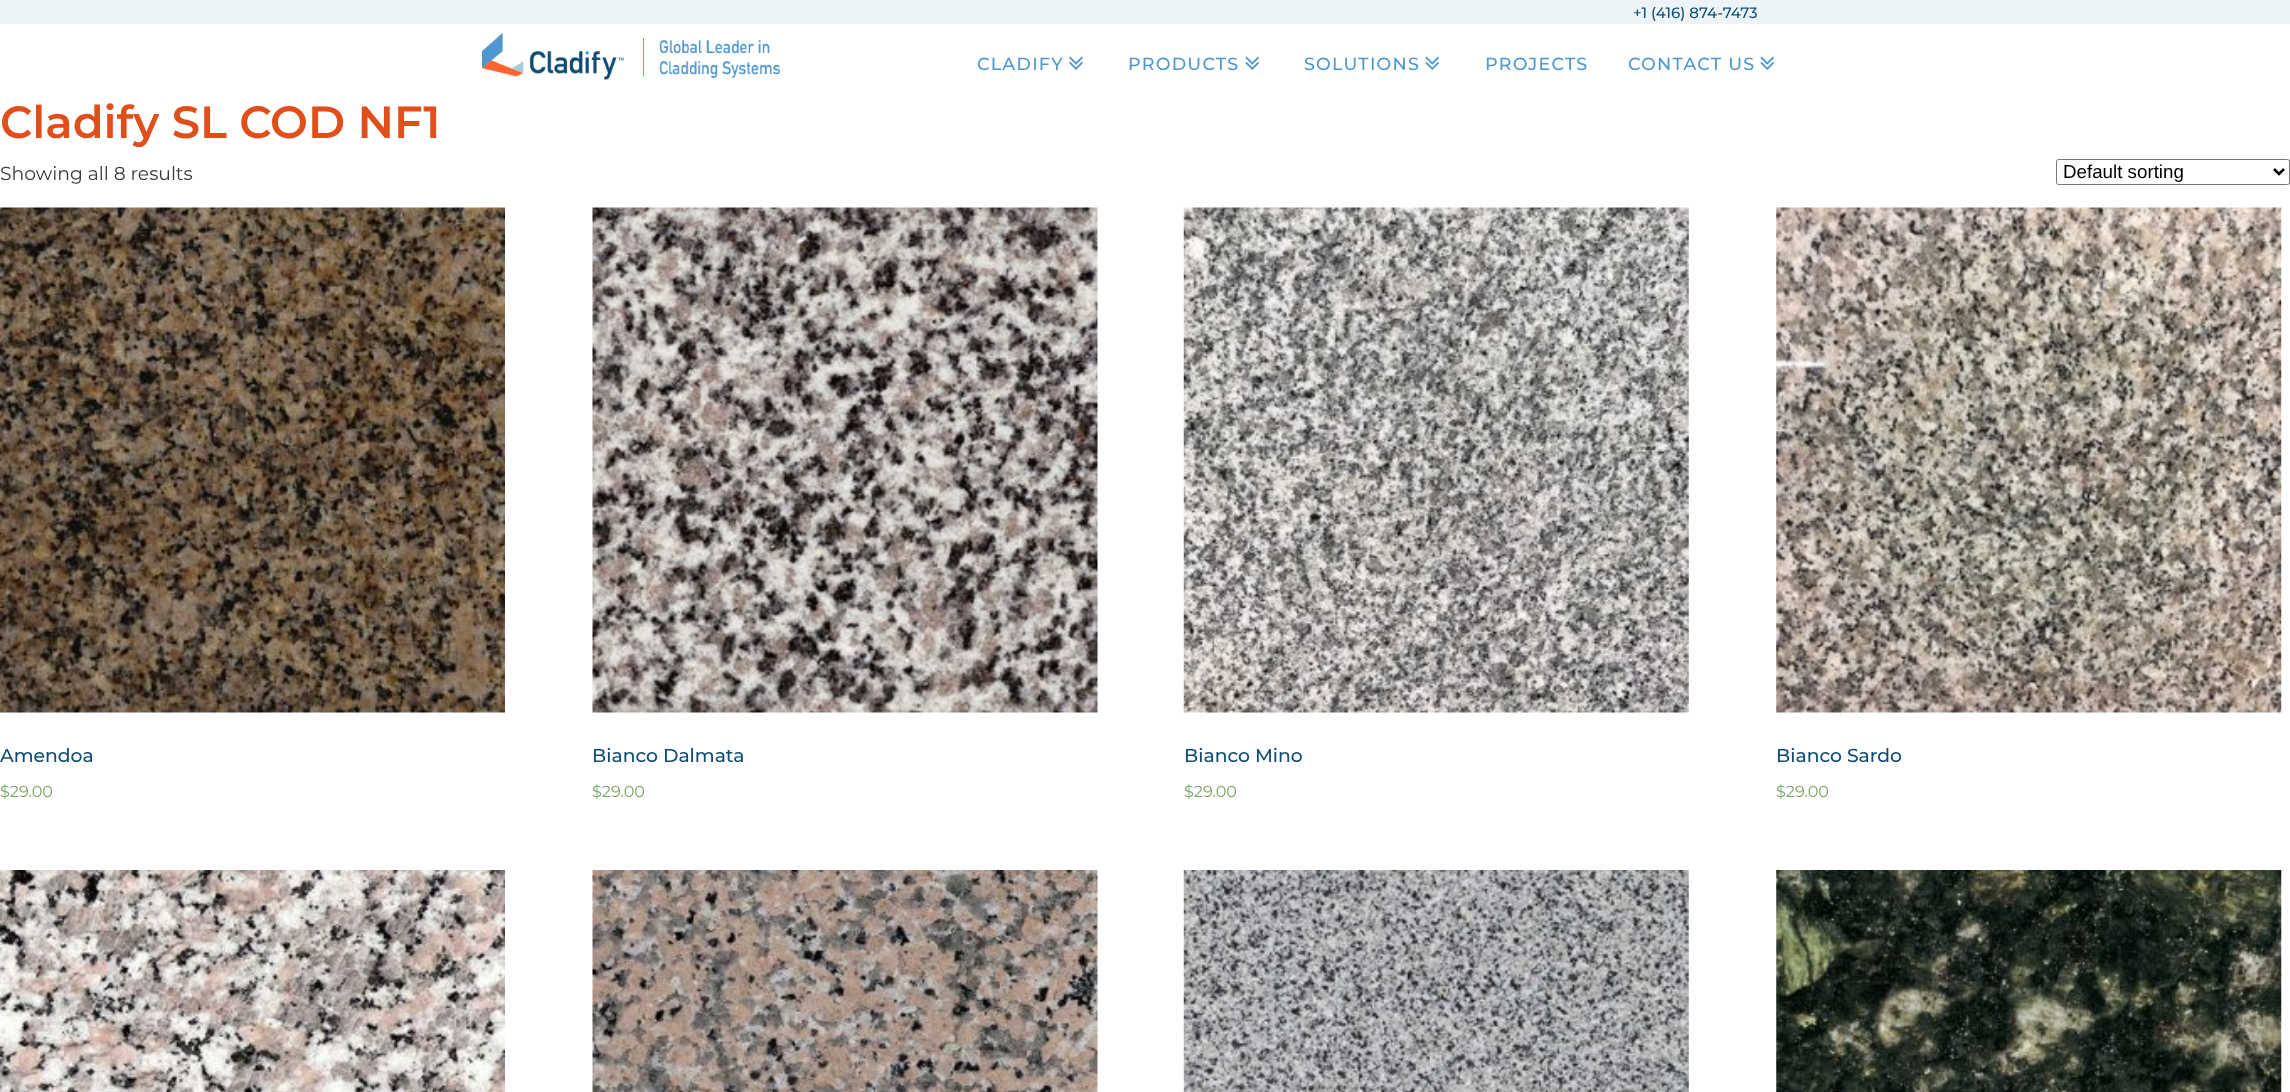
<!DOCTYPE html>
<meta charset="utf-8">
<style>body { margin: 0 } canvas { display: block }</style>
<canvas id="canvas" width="2290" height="1092"></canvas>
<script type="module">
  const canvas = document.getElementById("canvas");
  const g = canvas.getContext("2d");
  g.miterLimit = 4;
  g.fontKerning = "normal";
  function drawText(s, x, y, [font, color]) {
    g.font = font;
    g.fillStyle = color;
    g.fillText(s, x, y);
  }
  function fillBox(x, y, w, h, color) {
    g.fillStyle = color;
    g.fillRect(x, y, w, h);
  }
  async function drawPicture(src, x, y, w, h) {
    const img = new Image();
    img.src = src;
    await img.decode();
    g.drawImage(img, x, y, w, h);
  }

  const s1 = ["500 15px Montserrat", "#104D73"];
  const s2 = ["500 17.5px Montserrat", "#4F97CE"];
  const s3 = ["600 45px Montserrat", "#E04F1A"];
  const s4 = ["18.75px Montserrat", "#3A3A3A"];
  const s5 = ["18.75px Liberation Sans", "#000000"];
  const s6 = ["500 18.75px Montserrat", "#104D73"];
  const s7 = ["16px Montserrat", "#77A464"];

  fillBox(0, 0, 2290, 1092, "#FFFFFF");
  fillBox(0, 0, 2290, 24, "#EDF4F7");
  drawText("+1 (416) 874-7473", 1633, 18, s1);
  await drawPicture("pic1.png", 470, 23, 316, 63);
  g.letterSpacing = "1.25px";
  drawText("CLADIFY", 977, 70, s2);
  await drawPicture("pic2.png", 1069, 56, 14, 14);
  drawText("PRODUCTS", 1128, 70, s2);
  await drawPicture("pic3.png", 1245, 56, 14, 14);
  drawText("SOLUTIONS", 1304, 70, s2);
  await drawPicture("pic3.png", 1425, 56, 14, 14);
  drawText("PROJECTS", 1485, 70, s2);
  drawText("CONTACT US", 1628, 70, s2);
  await drawPicture("pic3.png", 1760, 56, 14, 14);
  g.letterSpacing = "0px";
  drawText("Cladify SL COD NF1", 0, 138, s3);
  drawText("Showing all 8 results", 0, 180, s4);
  g.beginPath();
  g.roundRect(2056.5, 159.5, 233, 25, 2);
  g.strokeStyle = "#767676";
  g.stroke();
  g.beginPath();
  g.moveTo(2274, 169);
  g.lineTo(2279, 174);
  g.lineTo(2284, 169);
  g.strokeStyle = "#000000";
  g.lineWidth = 2.5;
  g.stroke();
  drawText("Default sorting", 2063, 178, s5);
  await drawPicture("pic4.png", 0, 207, 505, 506);
  drawText("Amendoa", 0, 762, s6);
  drawText("$29.00", 0, 797, s7);
  await drawPicture("pic5.png", 592, 207, 506, 506);
  drawText("Bianco Dalmata", 592, 762, s6);
  drawText("$29.00", 592, 797, s7);
  await drawPicture("pic6.png", 1183, 207, 506, 506);
  drawText("Bianco Mino", 1184, 762, s6);
  drawText("$29.00", 1184, 797, s7);
  await drawPicture("pic7.png", 1776, 207, 506, 506);
  drawText("Bianco Sardo", 1776, 762, s6);
  drawText("$29.00", 1776, 797, s7);
  await drawPicture("pic8.png", 0, 870, 505, 222);
  await drawPicture("pic9.png", 592, 870, 506, 222);
  await drawPicture("pic10.png", 1183, 870, 506, 222);
  await drawPicture("pic11.png", 1776, 870, 506, 222);
</script>
